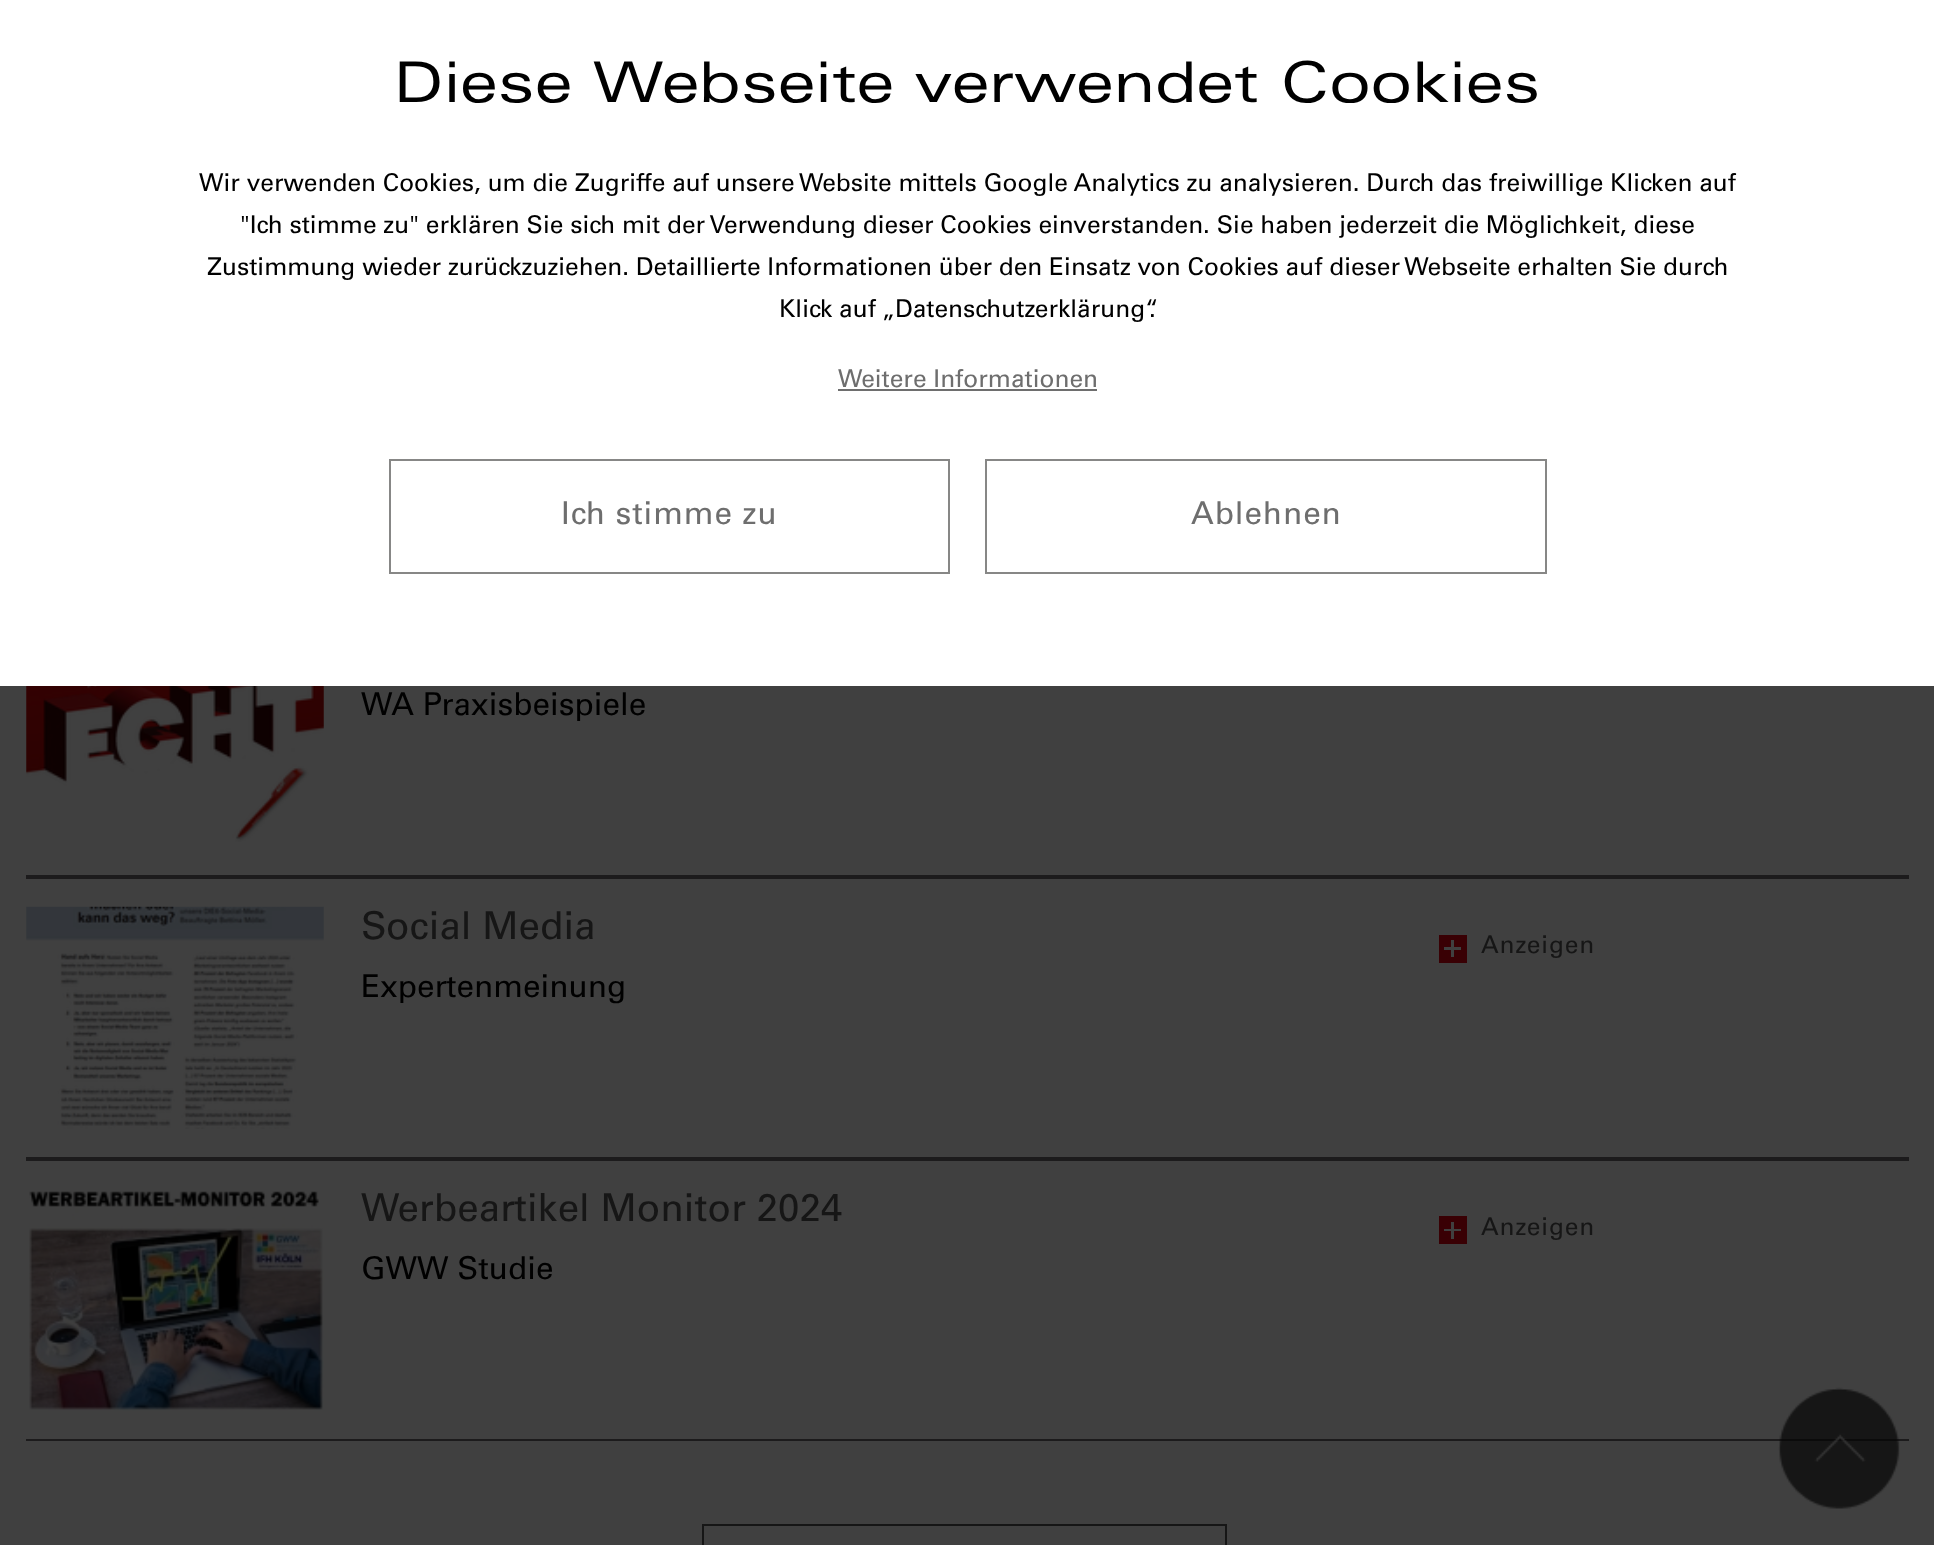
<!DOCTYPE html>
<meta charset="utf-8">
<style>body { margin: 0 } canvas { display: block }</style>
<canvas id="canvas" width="1934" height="1545"></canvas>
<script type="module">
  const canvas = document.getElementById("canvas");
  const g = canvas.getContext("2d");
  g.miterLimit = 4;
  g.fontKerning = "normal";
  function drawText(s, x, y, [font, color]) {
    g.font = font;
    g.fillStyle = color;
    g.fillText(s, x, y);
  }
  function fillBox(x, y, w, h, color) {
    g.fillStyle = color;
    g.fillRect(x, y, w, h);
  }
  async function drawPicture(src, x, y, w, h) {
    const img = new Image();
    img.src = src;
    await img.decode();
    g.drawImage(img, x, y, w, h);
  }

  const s1 = ["56px 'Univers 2'", "#000000"];
  const s2 = ["24.5px Univers", "#000000"];
  const s3 = ["24.5px Univers", "#6E6E6E"];
  const s4 = ["31.5px Univers", "#6E6E6E"];
  const s5 = ["31.5px Univers", "#000000"];
  const s6 = ["38.5px Univers", "#161616"];
  const s7 = ["24.5px Univers", "#161616"];

  fillBox(0, 0, 1934, 1545, "#404040");
  fillBox(0, 0, 1934, 686, "#FFFFFF");
  drawText("Diese Webseite verwendet Cookies", 394, 102, s1);
  drawText("Wir verwenden Cookies, um die Zugriffe auf unsere Website mittels Google Analytics zu analysieren. Durch das freiwillige Klicken auf", 199, 191, s2);
  drawText("\"Ich stimme zu\" erklären Sie sich mit der Verwendung dieser Cookies einverstanden. Sie haben jederzeit die Möglichkeit, diese", 240, 233, s2);
  drawText("Zustimmung wieder zurückzuziehen. Detaillierte Informationen über den Einsatz von Cookies auf dieser Webseite erhalten Sie durch", 207, 275, s2);
  drawText("Klick auf „Datenschutzerklärung“.", 779, 317, s2);
  drawText("Weitere Informationen", 838, 387, s3);
  fillBox(838, 389, 259, 2, "#6E6E6E");
  g.strokeStyle = "#878786";
  g.lineWidth = 2;
  g.strokeRect(390, 460, 559, 113);
  g.letterSpacing = "0.9px";
  drawText("Ich stimme zu", 561, 524, s4);
  g.strokeRect(986, 460, 560, 113);
  drawText("Ablehnen", 1191, 524, s4);
  fillBox(26, 875, 1883, 4, "#1C1B1C");
  await drawPicture("pic1.png", 26, 686, 298, 156);
  g.letterSpacing = "0px";
  drawText("WA Praxisbeispiele", 361, 715, s5);
  fillBox(26, 1157, 1883, 4, "#1C1B1C");
  await drawPicture("pic2.png", 26, 906, 298, 223);
  drawText("Social Media", 361, 939, s6);
  drawText("Expertenmeinung", 361, 997, s5);
  fillBox(1439, 935, 28, 28, "#390004");
  fillBox(1451, 940, 3, 17, "#404040");
  fillBox(1444, 947, 17, 3, "#404040");
  g.letterSpacing = "0.9px";
  drawText("Anzeigen", 1481, 953, s7);
  fillBox(26, 1439, 1883, 2, "#1C1B1C");
  await drawPicture("pic3.png", 29, 1191, 295, 220);
  g.letterSpacing = "0px";
  drawText("Werbeartikel Monitor 2024", 361, 1221, s6);
  drawText("GWW Studie", 361, 1279, s5);
  fillBox(1439, 1216, 28, 28, "#390004");
  fillBox(1451, 1222, 3, 17, "#404040");
  fillBox(1444, 1229, 17, 2, "#404040");
  g.letterSpacing = "0.9px";
  drawText("Anzeigen", 1481, 1235, s7);
  g.strokeStyle = "#161616";
  g.strokeRect(703, 1525, 523, 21);
  await drawPicture("pic4.png", 1778, 1387, 122, 122);
</script>
